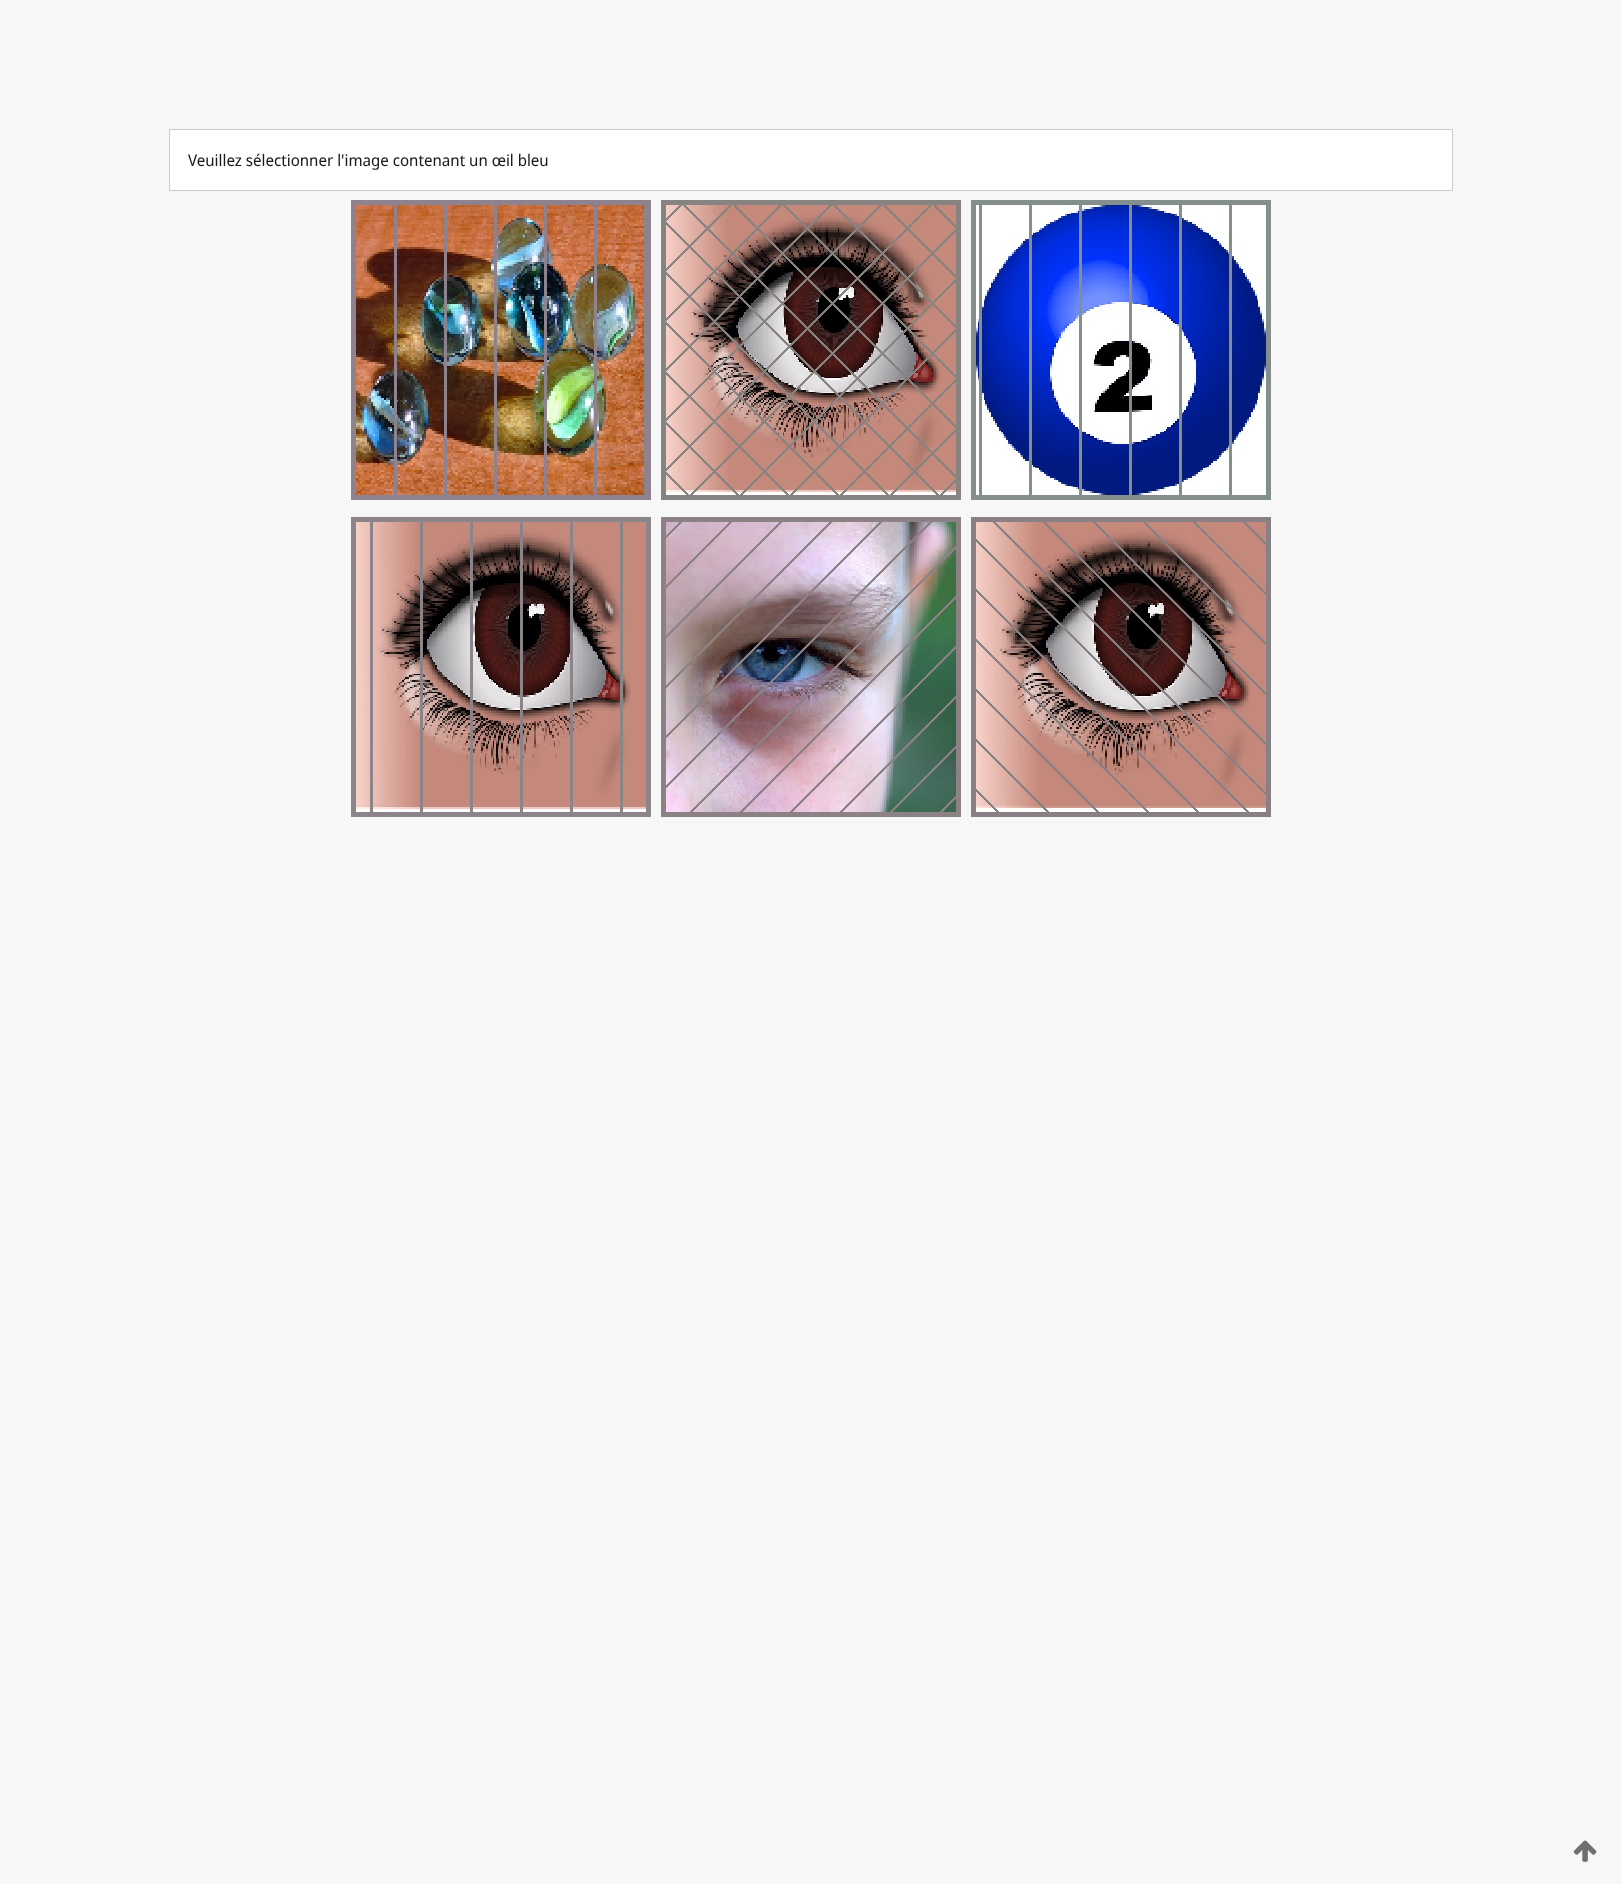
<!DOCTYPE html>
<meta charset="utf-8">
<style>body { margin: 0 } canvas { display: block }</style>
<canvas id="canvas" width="1622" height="1884"></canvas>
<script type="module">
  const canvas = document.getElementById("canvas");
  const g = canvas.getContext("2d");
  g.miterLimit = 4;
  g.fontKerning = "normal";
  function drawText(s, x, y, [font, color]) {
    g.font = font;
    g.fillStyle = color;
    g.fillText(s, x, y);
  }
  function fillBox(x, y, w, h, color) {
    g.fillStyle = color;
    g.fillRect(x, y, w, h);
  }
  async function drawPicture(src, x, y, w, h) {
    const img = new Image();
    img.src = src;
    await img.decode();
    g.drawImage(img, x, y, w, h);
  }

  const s1 = ["16px Noto Sans Display", "#1A1A1A"];

  fillBox(0, 0, 1622, 1884, "#F7F7F7");
  g.fillStyle = "#FFFFFF";
  g.beginPath();
  g.rect(169.5, 129.5, 1283, 61);
  g.fill();
  g.strokeStyle = "#CCCCCC";
  g.stroke();
  drawText("Veuillez sélectionner l'image contenant un œil bleu", 188, 166, s1);
  await drawPicture("pic1.png", 351, 200, 300, 300);
  await drawPicture("pic2.png", 661, 200, 300, 300);
  await drawPicture("pic3.png", 971, 200, 300, 300);
  await drawPicture("pic4.png", 351, 517, 300, 300);
  await drawPicture("pic5.png", 661, 517, 300, 300);
  await drawPicture("pic6.png", 971, 517, 300, 300);
  await drawPicture("pic7.png", 1573, 1840, 24, 22);
</script>
